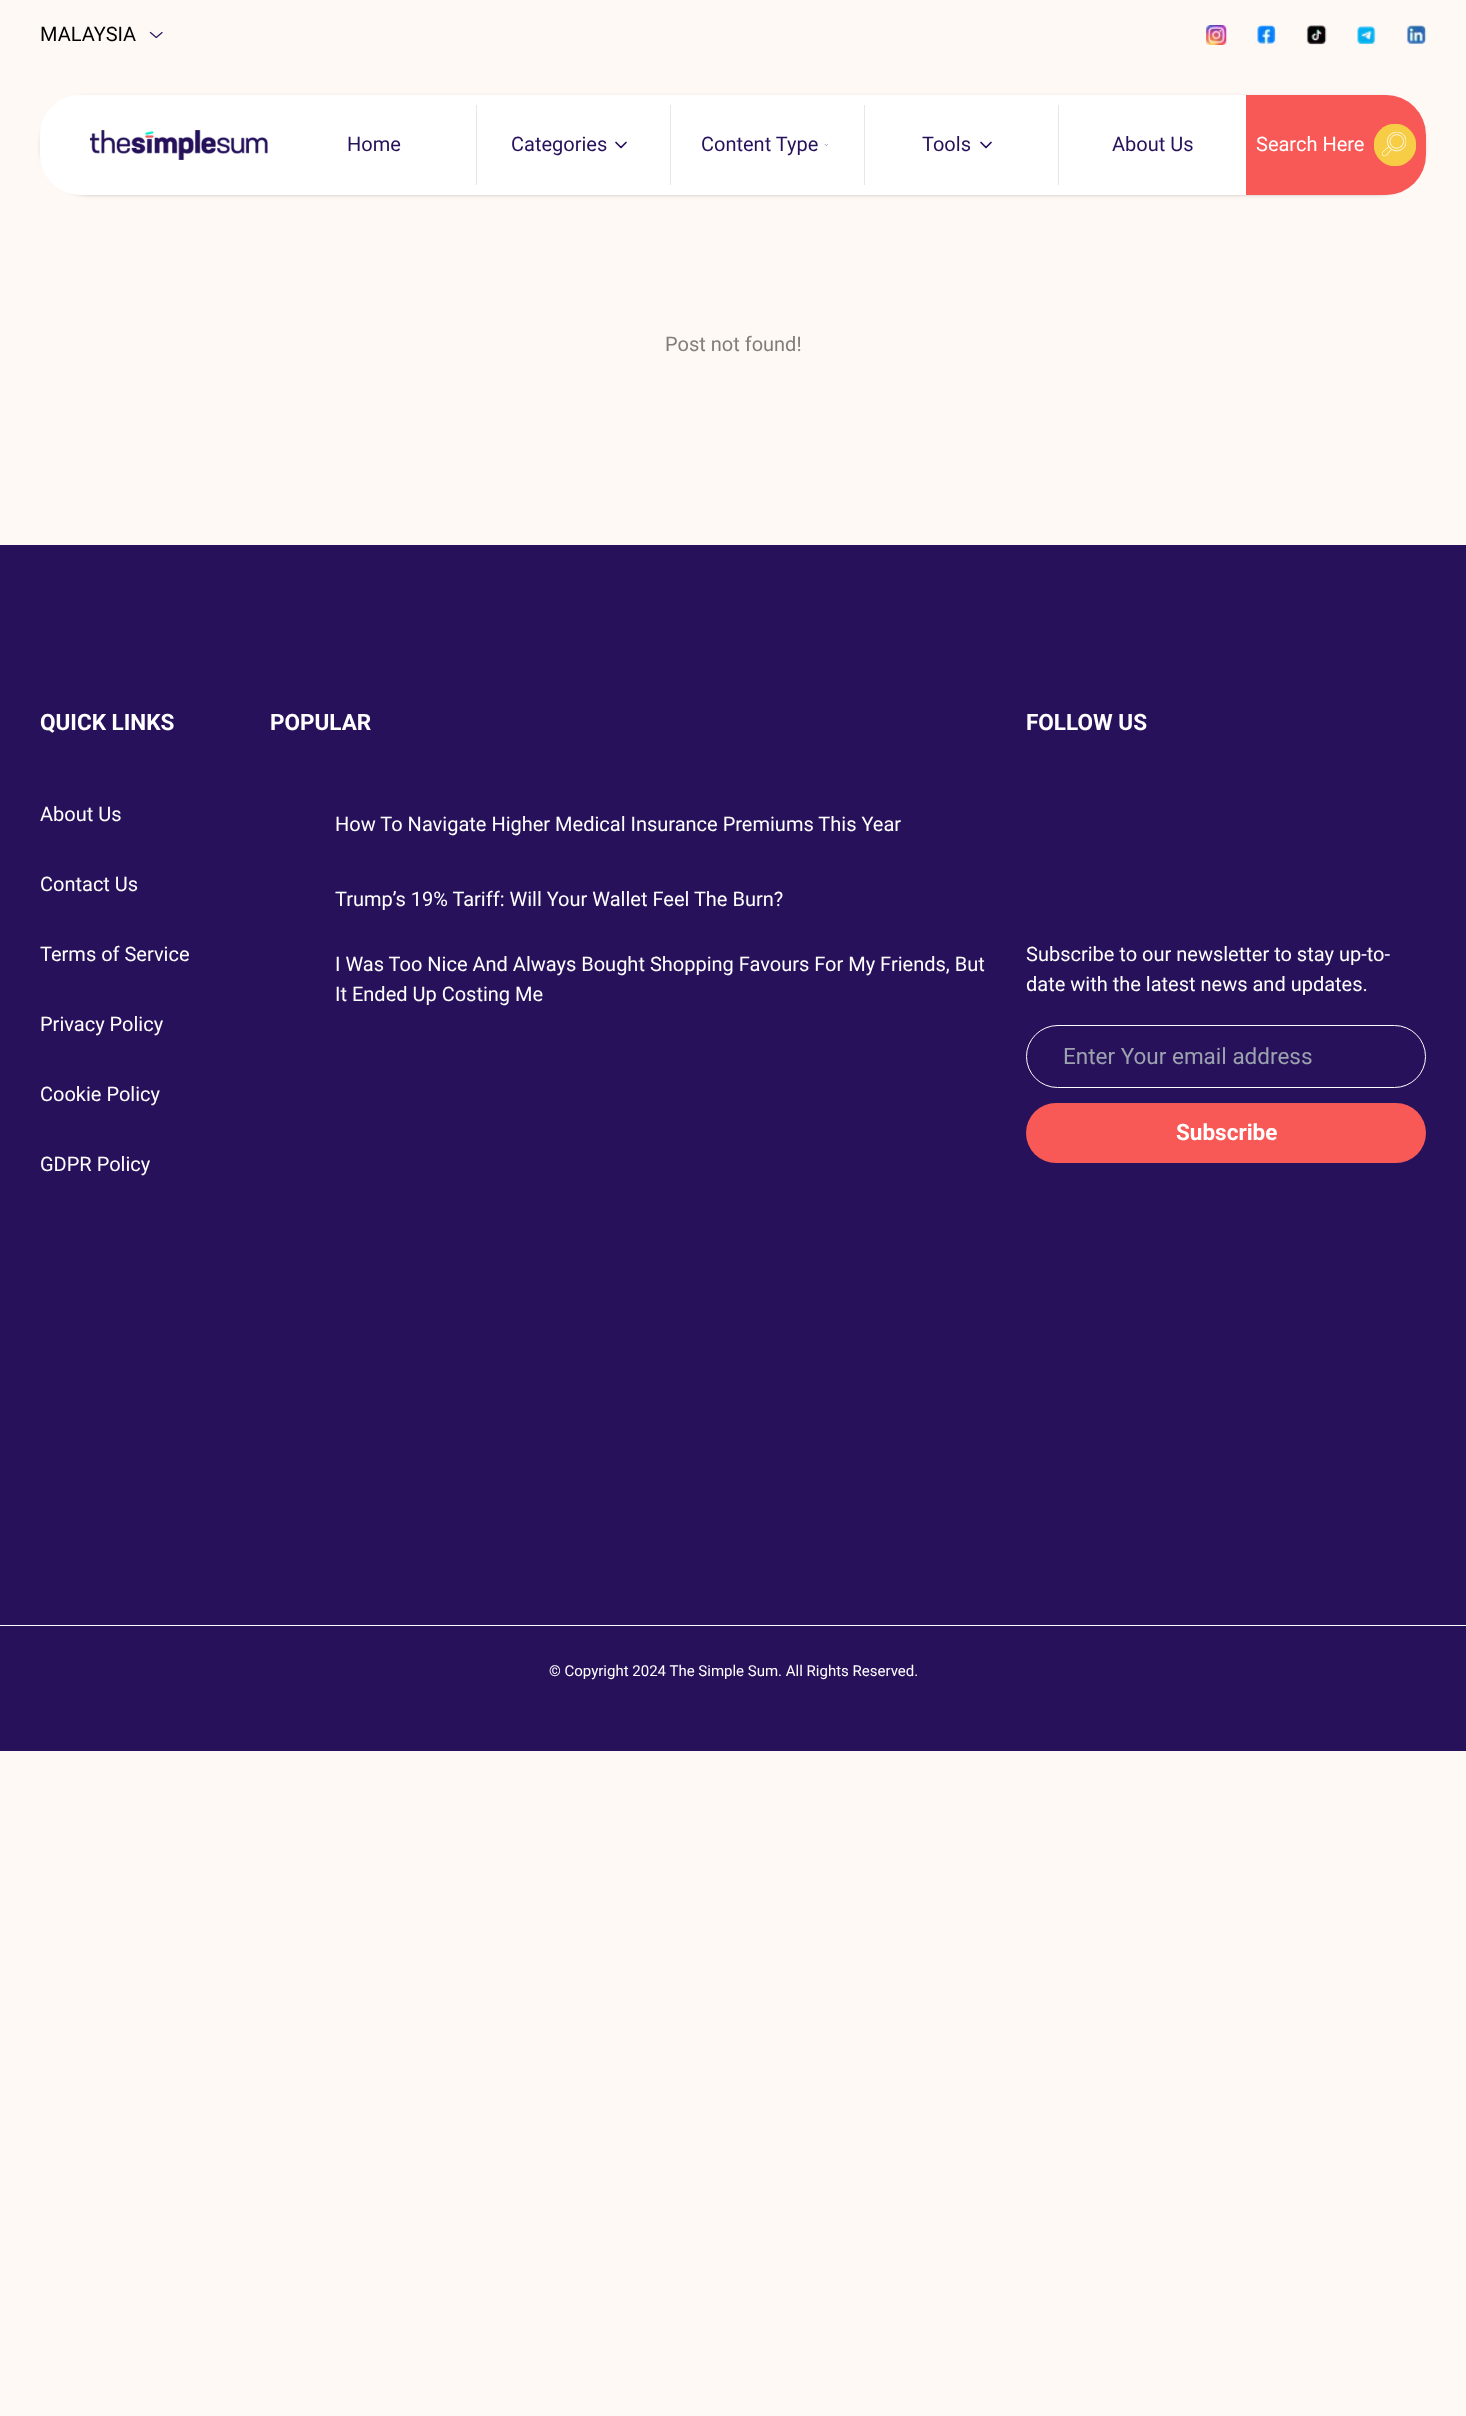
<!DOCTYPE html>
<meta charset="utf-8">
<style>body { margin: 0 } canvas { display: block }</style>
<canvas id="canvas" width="1466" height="2416"></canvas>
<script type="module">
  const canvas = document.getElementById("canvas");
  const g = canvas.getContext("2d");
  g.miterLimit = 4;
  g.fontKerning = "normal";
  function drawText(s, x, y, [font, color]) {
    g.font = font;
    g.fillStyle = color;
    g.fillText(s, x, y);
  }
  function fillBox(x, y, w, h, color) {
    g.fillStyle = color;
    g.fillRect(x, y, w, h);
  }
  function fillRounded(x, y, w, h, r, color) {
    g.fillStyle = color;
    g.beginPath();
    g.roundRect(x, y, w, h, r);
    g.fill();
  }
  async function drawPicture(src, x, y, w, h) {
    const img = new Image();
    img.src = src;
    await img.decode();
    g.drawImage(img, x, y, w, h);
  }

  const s1 = ["20px Roboto", "#000000"];
  const s2 = ["20px Roboto", "#27115B"];
  const s3 = ["20px Roboto", "#FFFFFF"];
  const s4 = ["20px Roboto", "#807D7B"];
  const s5 = ["bold 22.5px Roboto", "#FFFFFF"];
  const s6 = ["22.5px Roboto", "#9CA3AF"];
  const s7 = ["15px Roboto", "#FFFFFF"];

  fillBox(0, 0, 1466, 2416, "#FFF9F5");
  drawText("MALAYSIA", 40, 41, s1);
  await drawPicture("pic1.png", 149, 31, 14, 8);
  await drawPicture("pic2.png", 1206, 25, 21, 20);
  await drawPicture("pic3.png", 1257, 25, 19, 19);
  await drawPicture("pic4.png", 1306, 25, 21, 20);
  await drawPicture("pic5.png", 1357, 26, 19, 18);
  await drawPicture("pic6.png", 1406, 25, 21, 19);
  g.fillStyle = "rgba(0, 0, 0, 0.1)";
  g.filter = "blur(1px)";
  g.beginPath();
  g.roundRect(41, 98, 1384, 97, 48.5);
  g.fill();
  g.filter = "none";
  g.filter = "blur(2px)";
  g.beginPath();
  g.roundRect(40, 96, 1386, 100, 50);
  g.fill();
  g.filter = "none";
  g.fillStyle = "#FFFFFF";
  g.beginPath();
  g.roundRect(40, 95, 1206, 100, [40, 0, 0, 40]);
  g.fill();
  await drawPicture("pic7.png", 90, 130, 178, 30);
  drawText("Home", 347, 151, s2);
  fillBox(476, 105, 1, 80, "#E5E7EB");
  drawText("Categories", 511, 151, s2);
  g.beginPath();
  g.moveTo(616, 142.5);
  g.lineTo(621, 147.5);
  g.lineTo(626, 142.5);
  g.strokeStyle = "#27115B";
  g.lineWidth = 1.7;
  g.lineCap = "round";
  g.lineJoin = "round";
  g.stroke();
  fillBox(670, 105, 1, 80, "#E5E7EB");
  drawText("Content Type", 701, 151, s2);
  g.beginPath();
  g.moveTo(825, 144.5);
  g.lineTo(826.5, 145.5);
  g.lineTo(827.5, 144.5);
  g.lineWidth = 0.4;
  g.stroke();
  fillBox(864, 105, 1, 80, "#E5E7EB");
  drawText("Tools", 922, 151, s2);
  g.beginPath();
  g.moveTo(981, 142.5);
  g.lineTo(986, 147.5);
  g.lineTo(991, 142.5);
  g.lineWidth = 1.7;
  g.stroke();
  fillBox(1058, 105, 1, 80, "#E5E7EB");
  drawText("About Us", 1112, 151, s2);
  g.fillStyle = "#F85956";
  g.beginPath();
  g.roundRect(1246, 95, 180, 100, [0, 40, 40, 0]);
  g.fill();
  drawText("Search Here", 1256, 151, s3);
  await drawPicture("pic8.png", 1374, 124, 42, 42);
  drawText("Post not found!", 665, 351, s4);
  fillBox(0, 545, 1466, 1206, "#27115B");
  drawText("QUICK LINKS", 40, 730, s5);
  drawText("About Us", 40, 821, s3);
  drawText("Contact Us", 40, 891, s3);
  drawText("Terms of Service", 40, 961, s3);
  drawText("Privacy Policy", 40, 1031, s3);
  drawText("Cookie Policy", 40, 1101, s3);
  drawText("GDPR Policy", 40, 1171, s3);
  drawText("POPULAR", 270, 730, s5);
  drawText("How To Navigate Higher Medical Insurance Premiums This Year", 335, 831, s3);
  drawText("Trump’s 19% Tariff: Will Your Wallet Feel The Burn?", 335, 906, s3);
  drawText("I Was Too Nice And Always Bought Shopping Favours For My Friends, But", 335, 971, s3);
  drawText("It Ended Up Costing Me", 335, 1001, s3);
  drawText("FOLLOW US", 1026, 730, s5);
  drawText("Subscribe to our newsletter to stay up-to-", 1026, 961, s3);
  drawText("date with the latest news and updates.", 1026, 991, s3);
  g.beginPath();
  g.roundRect(1026.5, 1025.5, 399, 62, 31);
  g.strokeStyle = "#FFFFFF";
  g.lineWidth = 1;
  g.lineJoin = "miter";
  g.stroke();
  drawText("Enter Your email address", 1063, 1064, s6);
  fillRounded(1026, 1103, 400, 60, 30, "#F85956");
  drawText("Subscribe", 1176, 1140, s5);
  fillBox(0, 1625, 1466, 1, "#FFFFFF");
  drawText("© Copyright 2024 The Simple Sum. All Rights Reserved.", 549, 1676, s7);
</script>
